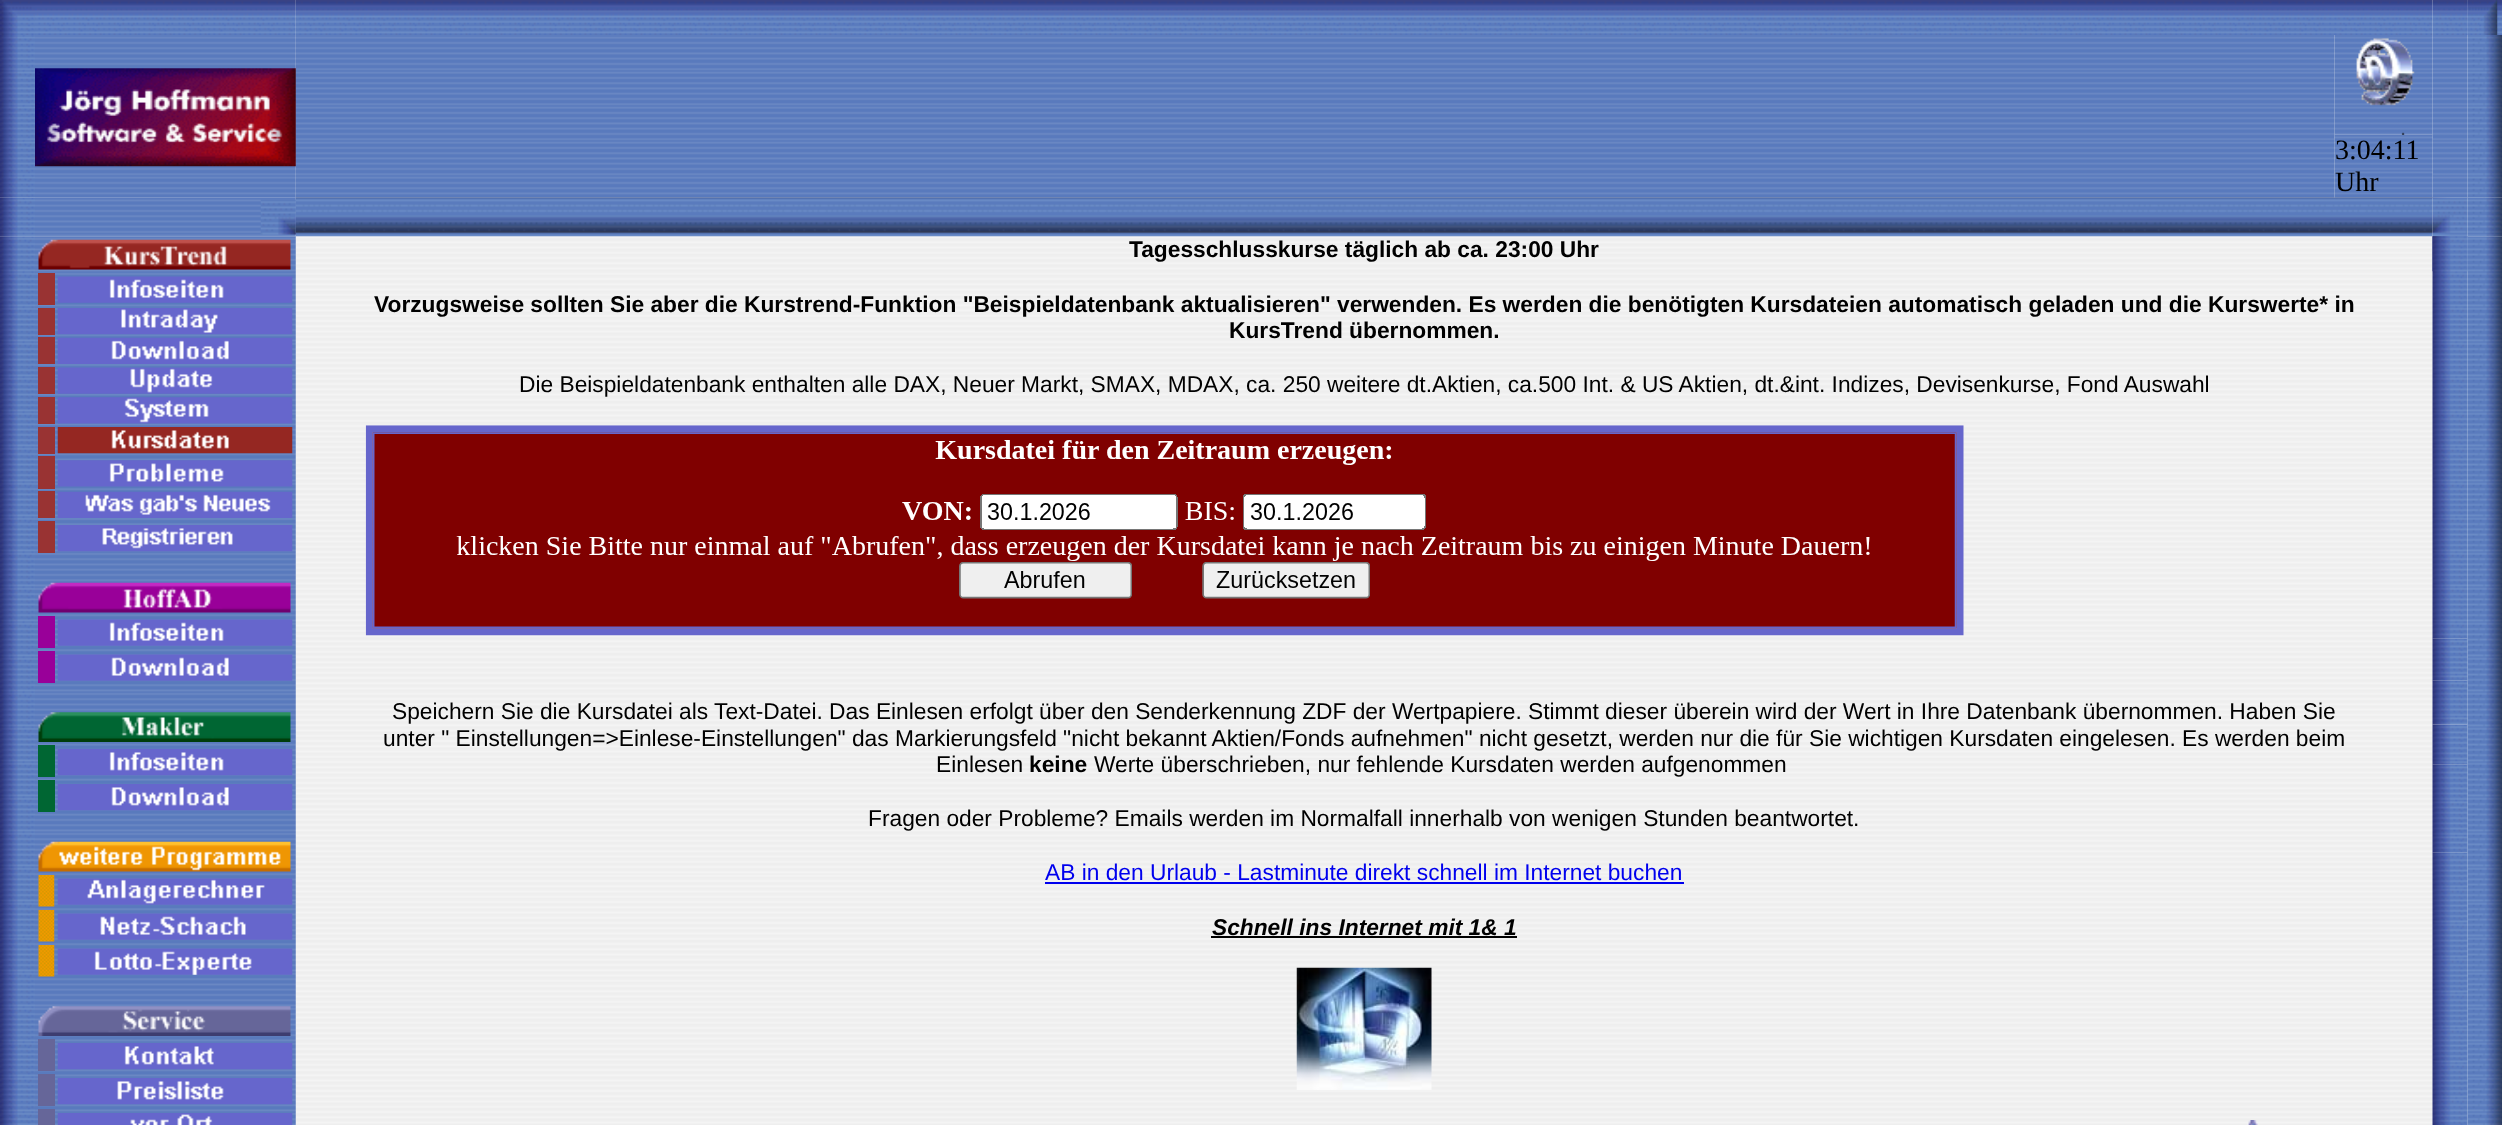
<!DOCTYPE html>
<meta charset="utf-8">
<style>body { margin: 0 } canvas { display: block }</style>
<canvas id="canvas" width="2502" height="1125"></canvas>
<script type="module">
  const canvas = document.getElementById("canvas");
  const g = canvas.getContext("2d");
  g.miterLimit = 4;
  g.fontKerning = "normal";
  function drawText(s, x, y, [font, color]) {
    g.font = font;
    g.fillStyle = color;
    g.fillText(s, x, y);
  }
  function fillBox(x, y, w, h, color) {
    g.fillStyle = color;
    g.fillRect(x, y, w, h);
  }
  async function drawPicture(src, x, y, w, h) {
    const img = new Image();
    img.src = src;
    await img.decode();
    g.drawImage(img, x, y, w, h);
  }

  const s1 = ["28px Liberation Serif", "#000000"];
  const s2 = ["bold 22.75px Liberation Sans", "#000000"];
  const s3 = ["22.75px Liberation Sans", "#000000"];
  const s4 = ["22.75px Liberation Sans", "#0000EE"];
  const s5 = ["italic bold 22.75px Liberation Sans", "#000000"];

  fillBox(0, 0, 2502, 1125, "#FFFFFF");
  await drawPicture("pic1.png", 0, 0, 2502, 1125);
  await drawPicture("pic2.png", 0, 0, 35, 35);
  await drawPicture("pic3.png", 35, 0, 261, 35);
  await drawPicture("pic4.png", 295, 0, 2036, 35);
  await drawPicture("pic5.png", 2331, 0, 102, 35);
  await drawPicture("pic6.png", 2432, 0, 36, 35);
  await drawPicture("pic7.png", 2467, 0, 35, 35);
  await drawPicture("pic8.png", 2467, 0, 31, 35);
  await drawPicture("pic9.png", 0, 35, 35, 163);
  await drawPicture("pic10.png", 35, 35, 261, 163);
  await drawPicture("pic12.png", 295, 35, 2040, 163);
  await drawPicture("pic11.png", 35, 68, 261, 99);
  await drawPicture("pic13.png", 2334, 35, 99, 100);
  await drawPicture("pic15.png", 2432, 35, 36, 163);
  await drawPicture("pic17.png", 2334, 134, 99, 64);
  await drawPicture("pic14.png", 2356, 38, 59, 97);
  await drawPicture("pic16.png", 2467, 35, 35, 163);
  drawText("3:04:11", 2335, 159, s1);
  drawText("Uhr", 2335, 191, s1);
  await drawPicture("pic18.png", 0, 197, 35, 40);
  await drawPicture("pic19.png", 35, 197, 261, 40);
  await drawPicture("pic21.png", 295, 197, 2138, 40);
  await drawPicture("pic20.png", 260, 199, 36, 36);
  await drawPicture("pic22.png", 2432, 197, 36, 40);
  await drawPicture("pic23.png", 2467, 197, 35, 40);
  await drawPicture("pic24.png", 0, 236, 35, 889);
  await drawPicture("pic25.png", 35, 236, 261, 889);
  await drawPicture("pic26.png", 38, 239, 253, 31);
  fillBox(38, 273, 17, 32, "#993333");
  await drawPicture("pic27.png", 57, 276, 236, 27);
  fillBox(38, 308, 17, 27, "#993333");
  await drawPicture("pic28.png", 57, 308, 236, 27);
  fillBox(38, 337, 17, 27, "#993333");
  await drawPicture("pic29.png", 57, 337, 236, 27);
  fillBox(38, 367, 17, 27, "#993333");
  await drawPicture("pic30.png", 57, 367, 236, 27);
  fillBox(38, 397, 17, 27, "#993333");
  await drawPicture("pic31.png", 57, 397, 236, 27);
  fillBox(38, 427, 17, 27, "#993333");
  await drawPicture("pic32.png", 57, 427, 236, 27);
  fillBox(38, 456, 17, 33, "#993333");
  await drawPicture("pic33.png", 57, 460, 236, 27);
  fillBox(38, 491, 17, 27, "#993333");
  await drawPicture("pic34.png", 57, 491, 236, 27);
  fillBox(38, 521, 17, 32, "#993333");
  await drawPicture("pic35.png", 57, 525, 236, 27);
  await drawPicture("pic36.png", 38, 582, 253, 31);
  fillBox(38, 616, 17, 32, "#990099");
  await drawPicture("pic37.png", 57, 619, 236, 27);
  fillBox(38, 651, 17, 32, "#990099");
  await drawPicture("pic38.png", 57, 654, 236, 27);
  await drawPicture("pic39.png", 38, 712, 253, 30);
  fillBox(38, 745, 17, 32, "#006633");
  await drawPicture("pic40.png", 57, 749, 236, 27);
  fillBox(38, 780, 17, 32, "#006633");
  await drawPicture("pic41.png", 57, 784, 236, 27);
  await drawPicture("pic42.png", 38, 841, 253, 31);
  await drawPicture("pic43.png", 38, 875, 17, 32);
  await drawPicture("pic44.png", 57, 878, 236, 27);
  await drawPicture("pic43.png", 38, 910, 17, 32);
  await drawPicture("pic45.png", 57, 913, 236, 27);
  await drawPicture("pic43.png", 38, 945, 17, 32);
  await drawPicture("pic46.png", 57, 948, 236, 27);
  await drawPicture("pic47.png", 38, 1006, 253, 30);
  fillBox(38, 1039, 17, 32, "#666699");
  await drawPicture("pic48.png", 57, 1043, 236, 27);
  fillBox(38, 1074, 17, 32, "#666699");
  await drawPicture("pic49.png", 57, 1078, 236, 27);
  fillBox(38, 1109, 17, 16, "#666699");
  await drawPicture("pic50.png", 57, 1113, 236, 12);
  drawText("Tagesschlusskurse täglich ab ca. 23:00 Uhr", 1129, 257, s2);
  drawText("Vorzugsweise sollten Sie aber die Kurstrend-Funktion \"Beispieldatenbank aktualisieren\" verwenden. Es werden die benötigten Kursdateien automatisch geladen und die Kurswerte* in", 374, 312, s2);
  drawText("KursTrend übernommen.", 1229, 338, s2);
  drawText("Die Beispieldatenbank enthalten alle DAX, Neuer Markt, SMAX, MDAX, ca. 250 weitere dt.Aktien, ca.500 Int. & US Aktien, dt.&int. Indizes, Devisenkurse, Fond Auswahl", 519, 392, s3);
  await drawPicture("pic51.png", 365, 425, 1599, 211);
  drawText("Speichern Sie die Kursdatei als Text-Datei. Das Einlesen erfolgt über den Senderkennung ZDF der Wertpapiere. Stimmt dieser überein wird der Wert in Ihre Datenbank übernommen. Haben Sie", 392, 719, s3);
  drawText("unter \" Einstellungen=>Einlese-Einstellungen\" das Markierungsfeld \"nicht bekannt Aktien/Fonds aufnehmen\" nicht gesetzt, werden nur die für Sie wichtigen Kursdaten eingelesen. Es werden beim", 383, 746, s3);
  drawText("Einlesen", 936, 772, s3);
  drawText("keine", 1029, 772, s2);
  drawText("Werte überschrieben, nur fehlende Kursdaten werden aufgenommen", 1094, 772, s3);
  drawText("Fragen oder Probleme? Emails werden im Normalfall innerhalb von wenigen Stunden beantwortet.", 868, 826, s3);
  drawText("AB in den Urlaub - Lastminute direkt schnell im Internet buchen", 1045, 880, s4);
  fillBox(1045, 882, 639, 2, "#0000EE");
  drawText("Schnell ins Internet mit 1& 1", 1212, 935, s5);
  fillBox(1211, 936, 306, 2, "#000000");
  await drawPicture("pic52.png", 1296, 967, 136, 123);
  await drawPicture("pic53.png", 2247, 1120, 11, 5);
  await drawPicture("pic54.png", 2432, 236, 36, 403);
  await drawPicture("pic56.png", 2467, 236, 35, 889);
  await drawPicture("pic55.png", 2432, 236, 36, 36);
  await drawPicture("pic57.png", 2432, 638, 36, 43);
  await drawPicture("pic58.png", 2432, 680, 36, 45);
  await drawPicture("pic59.png", 2432, 724, 36, 41);
  await drawPicture("pic60.png", 2432, 764, 36, 89);
  await drawPicture("pic61.png", 2432, 852, 36, 273);
</script>
